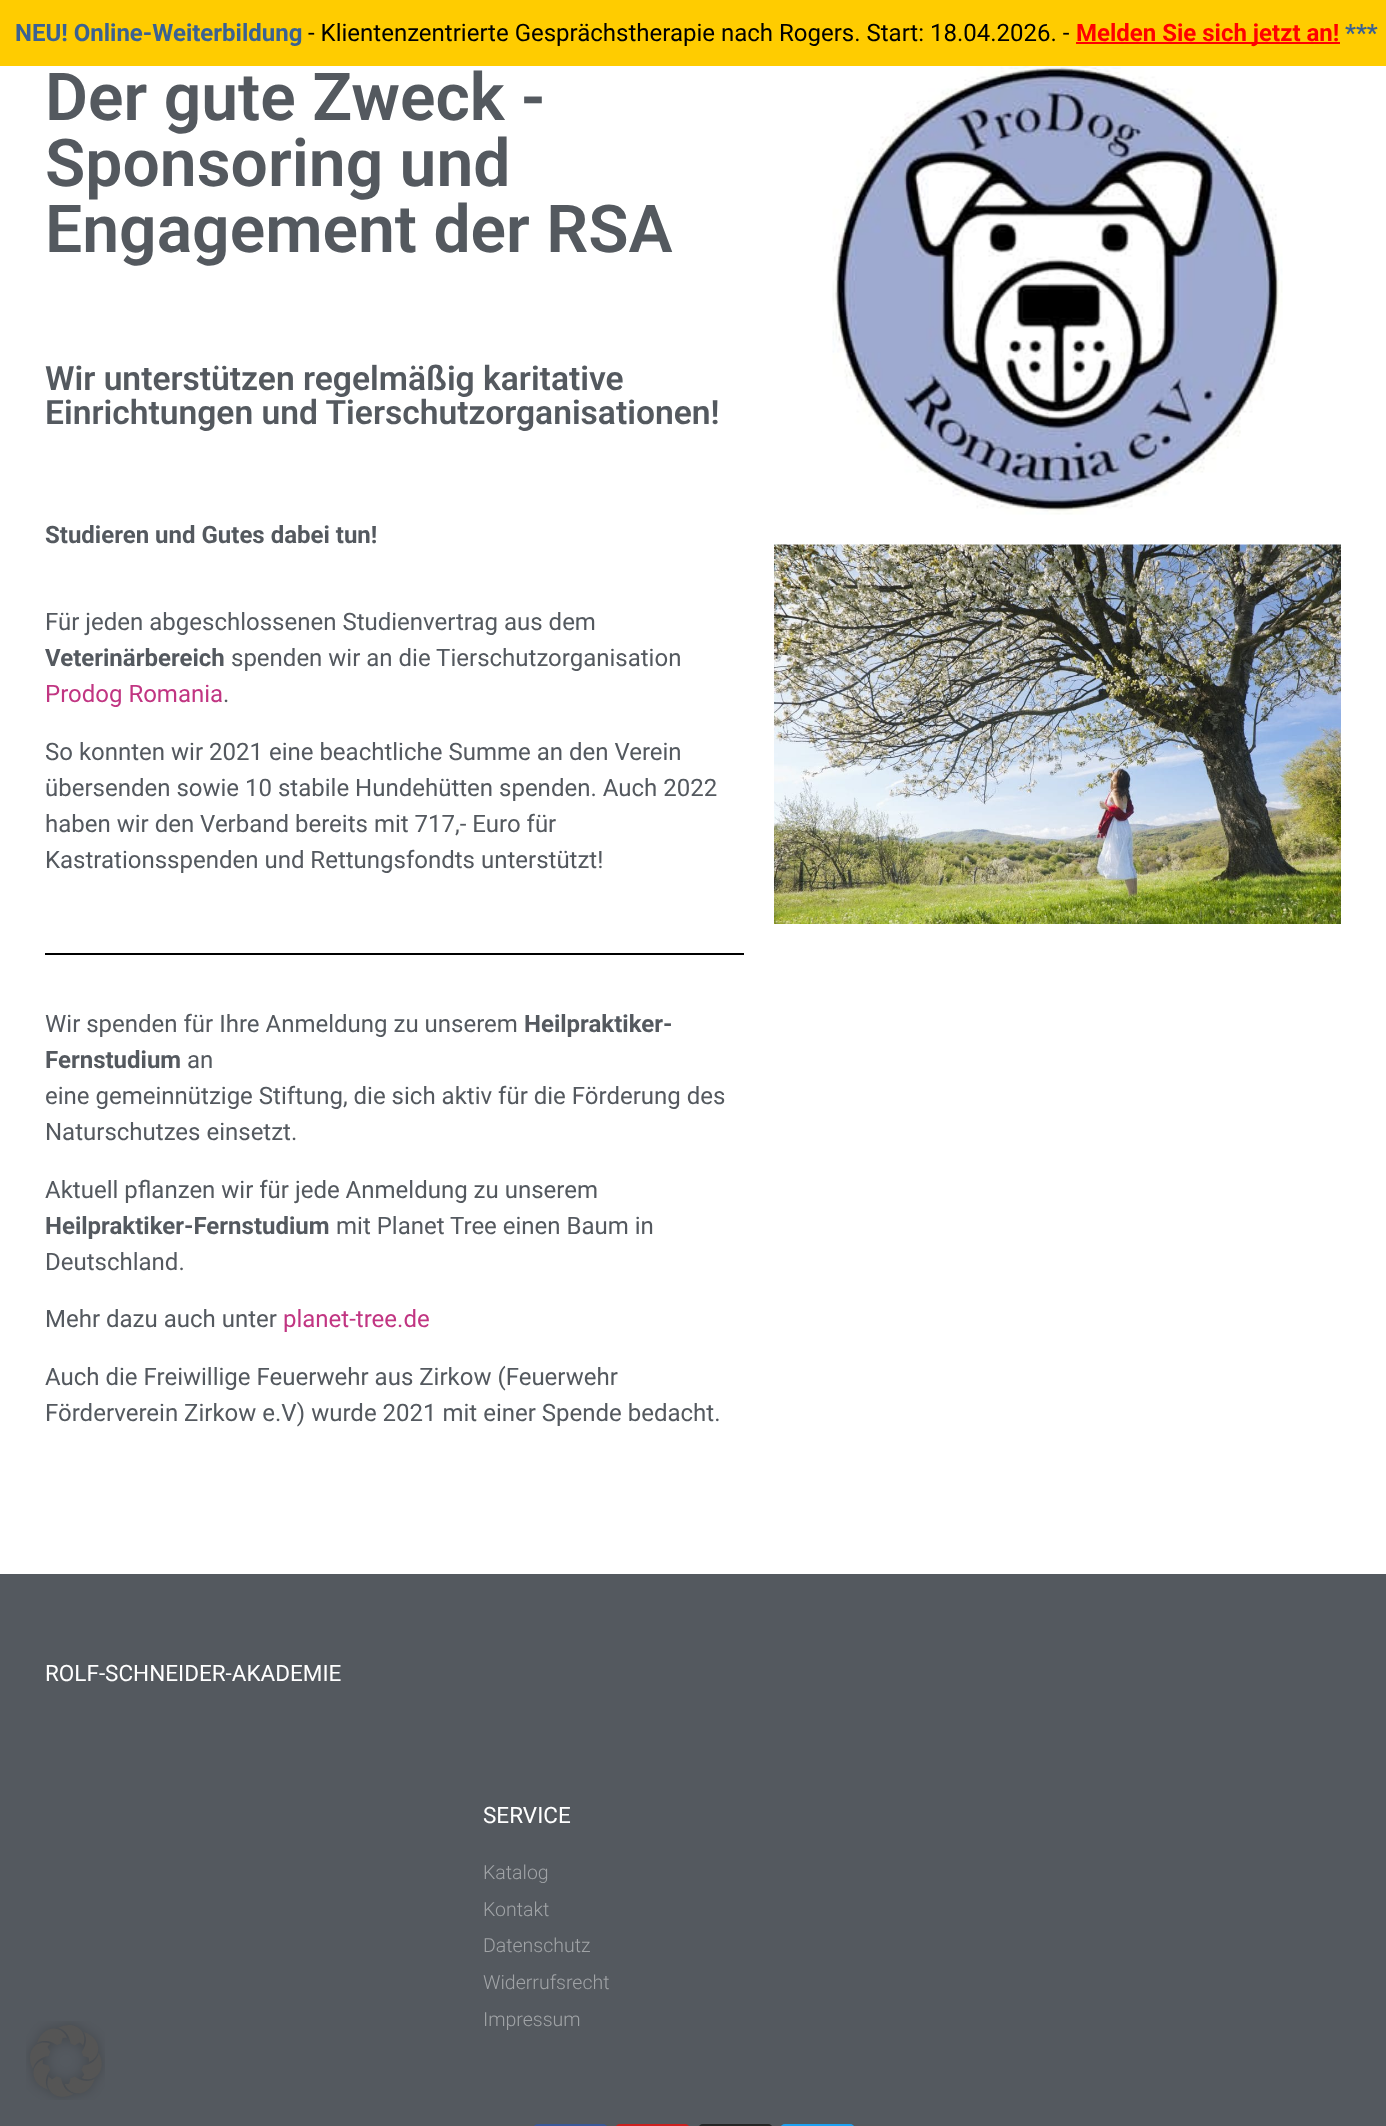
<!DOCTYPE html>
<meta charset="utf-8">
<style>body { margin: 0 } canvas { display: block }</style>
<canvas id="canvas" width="1386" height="2126"></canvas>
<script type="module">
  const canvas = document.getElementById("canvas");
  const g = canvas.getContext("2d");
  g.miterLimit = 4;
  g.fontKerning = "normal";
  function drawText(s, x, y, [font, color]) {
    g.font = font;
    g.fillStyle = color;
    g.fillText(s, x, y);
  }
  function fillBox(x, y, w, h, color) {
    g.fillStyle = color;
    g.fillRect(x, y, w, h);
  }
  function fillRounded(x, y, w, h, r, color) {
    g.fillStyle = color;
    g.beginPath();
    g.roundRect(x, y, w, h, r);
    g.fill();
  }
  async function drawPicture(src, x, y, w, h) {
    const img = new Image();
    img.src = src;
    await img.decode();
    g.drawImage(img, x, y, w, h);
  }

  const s1 = ["bold 24px Roboto", "#3B6292"];
  const s2 = ["24px Roboto", "#000000"];
  const s3 = ["bold 24px Roboto", "#FF0000"];
  const s4 = ["600 66px Roboto", "#54595F"];
  const s5 = ["600 33.6px Roboto", "#54595F"];
  const s6 = ["bold 24px Roboto", "#54595F"];
  const s7 = ["24px Roboto", "#54595F"];
  const s8 = ["24px Roboto", "#C13582"];
  const s9 = ["22.5px Roboto", "#FFFFFF"];
  const s10 = ["300 19.5px Roboto", "#A1A4A7"];

  fillBox(0, 0, 1386, 2126, "#FFFFFF");
  fillBox(0, 0, 1386, 66, "#FFCC00");
  drawText("NEU! Online-Weiterbildung", 15, 41, s1);
  drawText("- Klientenzentrierte Gesprächstherapie nach Rogers. Start: 18.04.2026. -", 308, 41, s2);
  fillBox(1076, 42, 264, 2, "#FF0000");
  drawText("Melden Sie sich jetzt an!", 1076, 41, s3);
  drawText("***", 1345, 41, s1);
  drawText("Der gute Zweck -", 45, 120, s4);
  drawText("Sponsoring und", 45, 186, s4);
  drawText("Engagement der RSA", 45, 252, s4);
  drawText("Wir unterstützen regelmäßig karitative", 45, 390, s5);
  drawText("Einrichtungen und Tierschutzorganisationen!", 45, 424, s5);
  drawText("Studieren und Gutes dabei tun!", 45, 543, s6);
  drawText("Für jeden abgeschlossenen Studienvertrag aus dem", 45, 630, s7);
  drawText("Veterinärbereich", 45, 666, s6);
  drawText("spenden wir an die Tierschutzorganisation", 231, 666, s7);
  drawText("Prodog Romania", 45, 702, s8);
  drawText(".", 223, 702, s7);
  drawText("So konnten wir 2021 eine beachtliche Summe an den Verein", 45, 760, s7);
  drawText("übersenden sowie 10 stabile Hundehütten spenden. Auch 2022", 45, 796, s7);
  drawText("haben wir den Verband bereits mit 717,- Euro für", 45, 832, s7);
  drawText("Kastrationsspenden und Rettungsfondts unterstützt!", 45, 868, s7);
  fillBox(45, 953, 699, 2, "#000000");
  drawText("Wir spenden für Ihre Anmeldung zu unserem", 45, 1032, s7);
  drawText("Heilpraktiker-", 524, 1032, s6);
  drawText("Fernstudium", 45, 1068, s6);
  drawText("an", 187, 1068, s7);
  drawText("eine gemeinnützige Stiftung, die sich aktiv für die Förderung des", 45, 1104, s7);
  drawText("Naturschutzes einsetzt.", 45, 1140, s7);
  drawText("Aktuell pflanzen wir für jede Anmeldung zu unserem", 45, 1198, s7);
  drawText("Heilpraktiker-Fernstudium", 45, 1234, s6);
  drawText("mit Planet Tree einen Baum in", 336, 1234, s7);
  drawText("Deutschland.", 45, 1270, s7);
  drawText("Mehr dazu auch unter", 45, 1327, s7);
  drawText("planet-tree.de", 283, 1327, s8);
  drawText("Auch die Freiwillige Feuerwehr aus Zirkow (Feuerwehr", 45, 1385, s7);
  drawText("Förderverein Zirkow e.V) wurde 2021 mit einer Spende bedacht.", 45, 1421, s7);
  await drawPicture("pic1.png", 832, 66, 451, 449);
  await drawPicture("pic2.png", 774, 544, 567, 380);
  fillBox(0, 1574, 1386, 552, "#54595F");
  drawText("ROLF-SCHNEIDER-AKADEMIE", 45, 1681, s9);
  drawText("SERVICE", 483, 1823, s9);
  drawText("Katalog", 483, 1879, s10);
  drawText("Kontakt", 483, 1916, s10);
  drawText("Datenschutz", 483, 1952, s10);
  drawText("Widerrufsrecht", 483, 1989, s10);
  drawText("Impressum", 483, 2026, s10);
  fillRounded(533, 2124, 75, 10, 8, "#3B5998");
  fillRounded(615, 2124, 75, 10, 8, "#CD201F");
  fillRounded(698, 2124, 75, 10, 8, "#262626");
  fillRounded(780, 2124, 75, 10, 8, "#1DA1F2");
  await drawPicture("pic3.png", 26, 2021, 79, 79);
</script>
